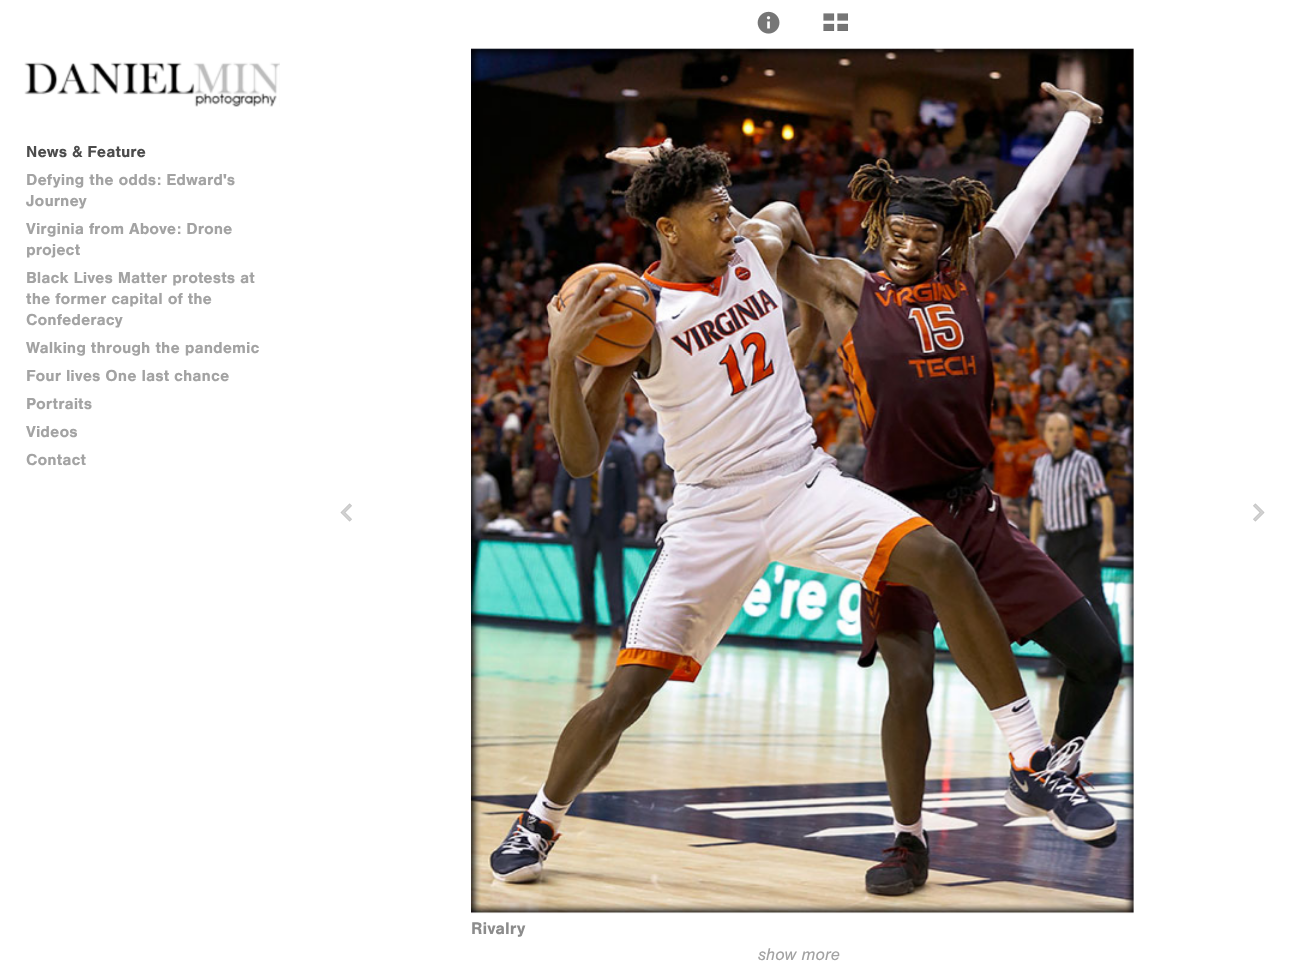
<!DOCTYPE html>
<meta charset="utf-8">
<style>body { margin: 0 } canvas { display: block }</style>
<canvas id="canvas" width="1301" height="978"></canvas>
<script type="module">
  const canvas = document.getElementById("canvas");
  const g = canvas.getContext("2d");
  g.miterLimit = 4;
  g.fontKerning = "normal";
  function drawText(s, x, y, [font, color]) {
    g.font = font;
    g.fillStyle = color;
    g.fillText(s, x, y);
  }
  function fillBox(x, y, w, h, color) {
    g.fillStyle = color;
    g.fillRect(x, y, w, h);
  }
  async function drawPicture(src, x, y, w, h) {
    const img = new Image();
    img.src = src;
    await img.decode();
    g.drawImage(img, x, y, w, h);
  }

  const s1 = ["bold 16.6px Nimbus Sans", "#4C4C4C"];
  const s2 = ["bold 16.6px Nimbus Sans", "#A3A3A3"];
  const s3 = ["bold 17.5px Nimbus Sans", "#8C8C8C"];
  const s4 = ["italic 17.5px Nimbus Sans", "#A3A3A3"];

  fillBox(0, 0, 1301, 978, "#FFFFFF");
  await drawPicture("pic1.png", 757, 11, 23, 23);
  await drawPicture("pic2.png", 823, 13, 25, 18);
  await drawPicture("pic3.png", 24, 62, 256, 45);
  drawText("News & Feature", 26, 157, s1);
  drawText("Defying the odds: Edward's", 26, 185, s2);
  drawText("Journey", 26, 206, s2);
  drawText("Virginia from Above: Drone", 26, 234, s2);
  drawText("project", 26, 255, s2);
  drawText("Black Lives Matter protests at", 26, 283, s2);
  drawText("the former capital of the", 26, 304, s2);
  drawText("Confederacy", 26, 325, s2);
  drawText("Walking through the pandemic", 26, 353, s2);
  drawText("Four lives One last chance", 26, 381, s2);
  drawText("Portraits", 26, 409, s2);
  drawText("Videos", 26, 437, s2);
  drawText("Contact", 26, 465, s2);
  await drawPicture("pic4.png", 340, 503, 12, 19);
  await drawPicture("pic5.png", 1253, 503, 12, 19);
  await drawPicture("pic6.png", 471, 48, 663, 866);
  drawText("Rivalry", 471, 934, s3);
  drawText("show more", 758, 960, s4);
</script>
